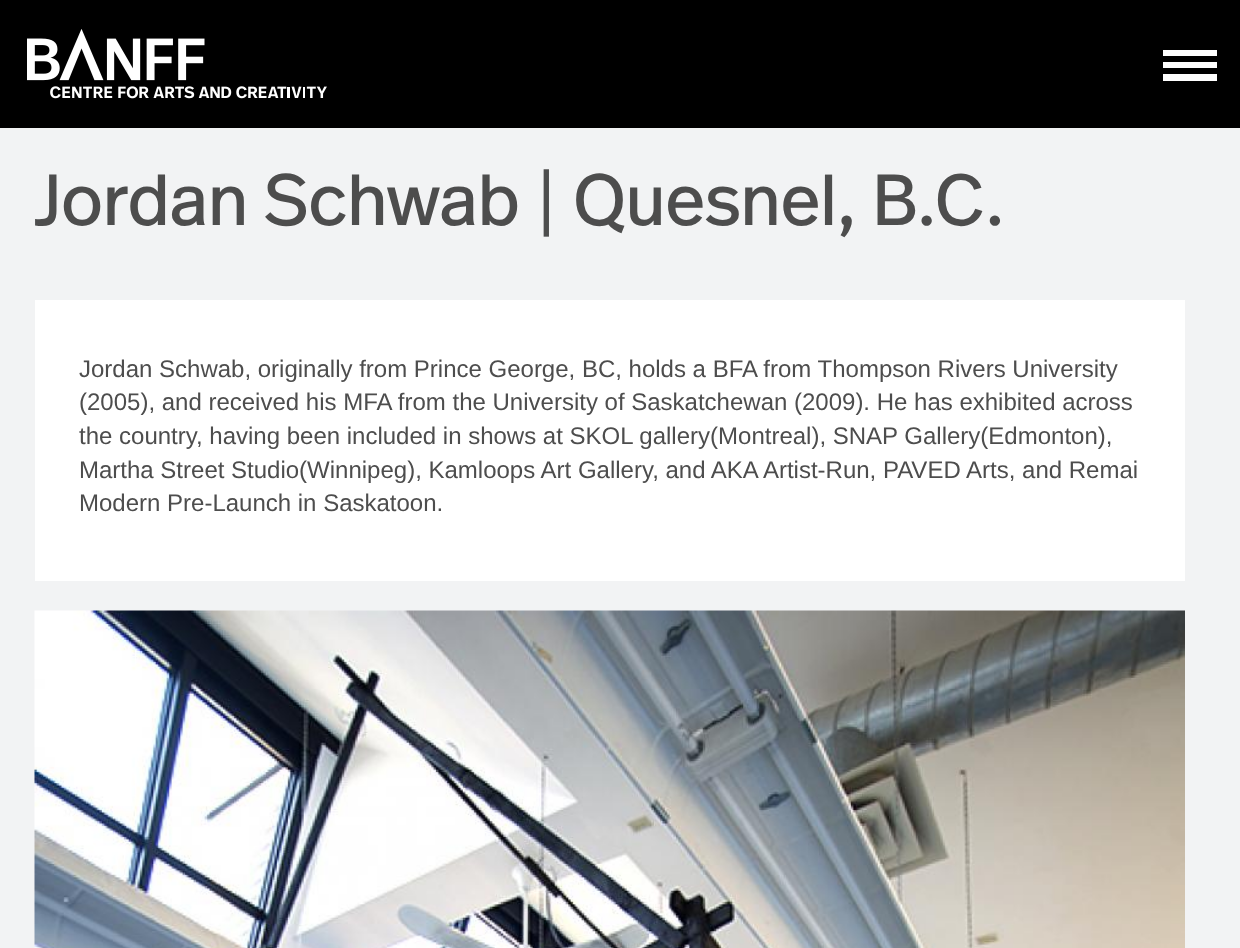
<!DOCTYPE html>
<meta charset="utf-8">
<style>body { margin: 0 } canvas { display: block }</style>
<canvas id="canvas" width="1240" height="948"></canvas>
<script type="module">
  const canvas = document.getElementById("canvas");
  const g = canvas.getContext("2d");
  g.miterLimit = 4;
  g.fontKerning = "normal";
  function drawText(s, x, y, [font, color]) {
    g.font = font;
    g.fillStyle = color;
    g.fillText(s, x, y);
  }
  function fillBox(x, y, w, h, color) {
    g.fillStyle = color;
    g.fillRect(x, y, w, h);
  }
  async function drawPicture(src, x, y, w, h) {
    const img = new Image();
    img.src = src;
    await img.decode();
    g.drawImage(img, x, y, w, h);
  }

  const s1 = ["72px 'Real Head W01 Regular'", "#4D4D4D"];
  const s2 = ["24px Liberation Sans", "#4D4D4D"];

  fillBox(0, 0, 1240, 948, "#F2F3F4");
  fillBox(0, 0, 1240, 128, "#000000");
  await drawPicture("pic1.png", 27, 29, 300, 70);
  fillBox(1163, 50, 54, 6, "#FFFFFF");
  fillBox(1163, 62, 54, 6, "#FFFFFF");
  fillBox(1163, 74, 54, 7, "#FFFFFF");
  drawText("Jordan Schwab | Quesnel, B.C.", 34, 225, s1);
  fillBox(35, 300, 1150, 281, "#FFFFFF");
  drawText("Jordan Schwab, originally from Prince George, BC, holds a BFA from Thompson Rivers University", 79, 377, s2);
  drawText("(2005), and received his MFA from the University of Saskatchewan (2009). He has exhibited across", 79, 410, s2);
  drawText("the country, having been included in shows at SKOL gallery(Montreal), SNAP Gallery(Edmonton),", 79, 444, s2);
  drawText("Martha Street Studio(Winnipeg), Kamloops Art Gallery, and AKA Artist-Run, PAVED Arts, and Remai", 79, 478, s2);
  drawText("Modern Pre-Launch in Saskatoon.", 79, 511, s2);
  await drawPicture("pic2.png", 34, 610, 1151, 338);
</script>
